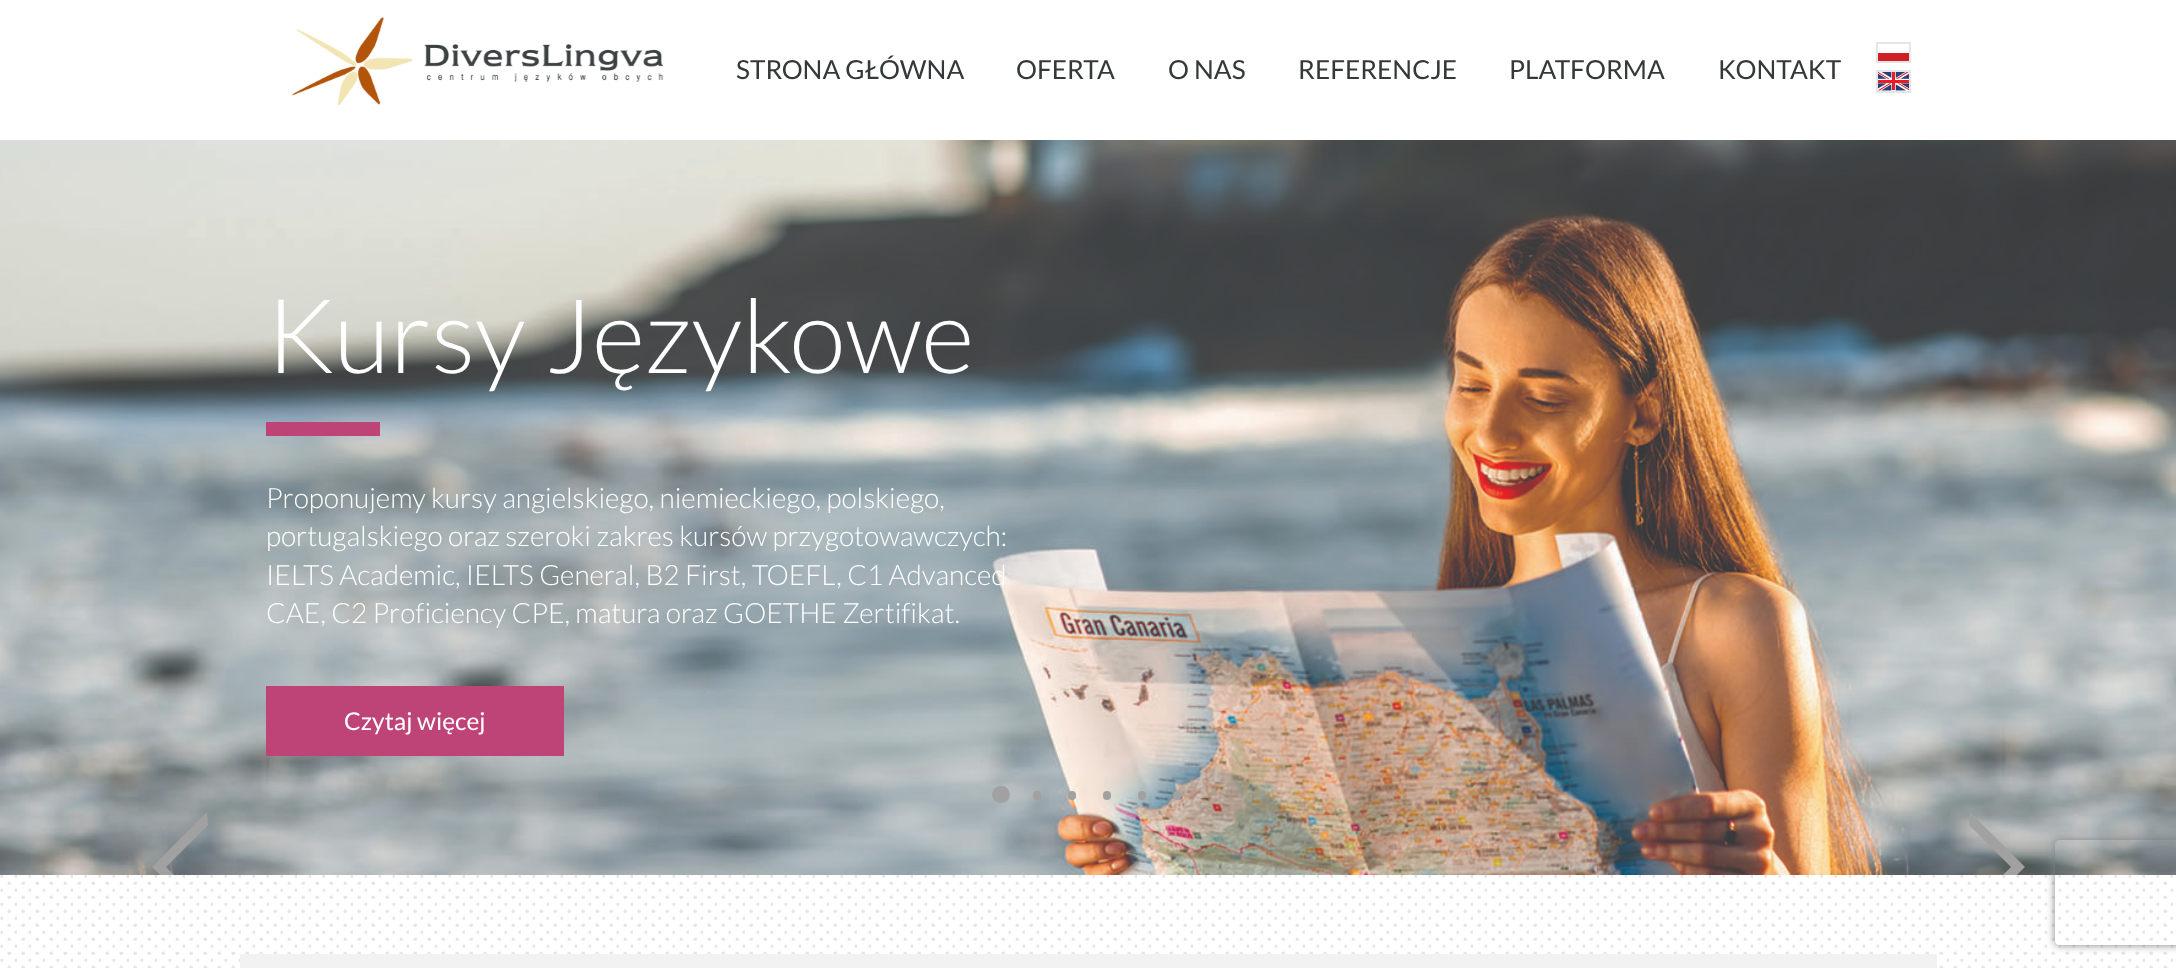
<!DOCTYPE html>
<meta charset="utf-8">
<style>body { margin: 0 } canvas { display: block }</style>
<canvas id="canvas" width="2176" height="968"></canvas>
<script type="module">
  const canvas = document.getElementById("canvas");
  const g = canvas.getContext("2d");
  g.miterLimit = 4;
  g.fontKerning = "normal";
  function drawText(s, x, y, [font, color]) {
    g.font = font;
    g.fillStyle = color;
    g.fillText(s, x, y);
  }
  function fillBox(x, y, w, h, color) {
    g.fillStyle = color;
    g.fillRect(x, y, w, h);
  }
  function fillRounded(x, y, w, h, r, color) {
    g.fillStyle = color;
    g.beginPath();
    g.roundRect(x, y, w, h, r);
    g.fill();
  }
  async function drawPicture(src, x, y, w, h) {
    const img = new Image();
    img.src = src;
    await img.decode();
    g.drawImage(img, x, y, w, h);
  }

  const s1 = ["26.25px Lato", "#333939"];
  const s2 = ["300 103.25px Lato", "#FFFFFF"];
  const s3 = ["300 28px Lato", "#FFFFFF"];
  const s4 = ["24.5px Lato", "#FFFFFF"];

  fillBox(0, 0, 2176, 968, "#FFFFFF");
  await drawPicture("pic1.png", 292, 17, 372, 88);
  drawText("STRONA GŁÓWNA", 736, 79, s1);
  drawText("OFERTA", 1016, 79, s1);
  drawText("O NAS", 1168, 79, s1);
  drawText("REFERENCJE", 1298, 79, s1);
  drawText("PLATFORMA", 1509, 79, s1);
  drawText("KONTAKT", 1718, 79, s1);
  g.strokeStyle = "#E6E6E6";
  g.lineWidth = 2;
  g.strokeRect(1877, 43, 33, 19);
  fillBox(1878, 53, 31, 8, "#CF2027");
  g.strokeRect(1877, 71, 33, 21);
  await drawPicture("pic2.png", 1878, 72, 31, 19);
  await drawPicture("pic3.png", 0, 140, 2176, 735);
  drawText("Kursy Językowe", 266, 373, s2);
  fillBox(266, 422, 114, 14, "#BE4376");
  drawText("Proponujemy kursy angielskiego, niemieckiego, polskiego,", 266, 508, s3);
  drawText("portugalskiego oraz szeroki zakres kursów przygotowawczych:", 266, 546, s3);
  drawText("IELTS Academic, IELTS General, B2 First, TOEFL, C1 Advanced", 266, 585, s3);
  drawText("CAE, C2 Proficiency CPE, matura oraz GOETHE Zertifikat.", 266, 623, s3);
  fillBox(266, 686, 298, 70, "#BE4376");
  drawText("Czytaj więcej", 344, 730, s4);
  fillRounded(992, 786, 18, 17, 8.5, "#A1A1A1");
  fillRounded(1033, 791, 8, 9, 4, "#A1A1A1");
  fillRounded(1068, 791, 8, 9, 4, "#A1A1A1");
  fillRounded(1103, 791, 8, 9, 4, "#A1A1A1");
  fillRounded(1138, 791, 8, 9, 4, "#A1A1A1");
  fillRounded(1173, 791, 8, 9, 4, "#A1A1A1");
  g.save();
  g.beginPath();
  g.rect(152, 812, 56, 63);
  g.clip();
  g.beginPath();
  g.moveTo(207, 921);
  g.lineTo(208, 909);
  g.lineTo(166, 867);
  g.lineTo(208, 825);
  g.lineTo(207, 812);
  g.lineTo(152, 867);
  g.closePath();
  g.fill();
  g.restore();
  g.save();
  g.beginPath();
  g.rect(1969, 812, 56, 63);
  g.clip();
  g.beginPath();
  g.moveTo(1970, 812);
  g.lineTo(1969, 825);
  g.lineTo(2011, 867);
  g.lineTo(1969, 909);
  g.lineTo(1970, 921);
  g.lineTo(2025, 867);
  g.closePath();
  g.fill();
  g.restore();
  await drawPicture("pic4.png", 0, 875, 2173, 93);
  g.save();
  g.beginPath();
  g.moveTo(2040, 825);
  g.lineTo(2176, 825);
  g.lineTo(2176, 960);
  g.lineTo(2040, 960);
  g.closePath();
  g.moveTo(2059, 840);
  g.lineTo(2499, 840);
  g.bezierCurveTo(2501, 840, 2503, 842, 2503, 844);
  g.lineTo(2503, 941);
  g.bezierCurveTo(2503, 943, 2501, 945, 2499, 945);
  g.lineTo(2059, 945);
  g.bezierCurveTo(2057, 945, 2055, 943, 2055, 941);
  g.lineTo(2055, 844);
  g.bezierCurveTo(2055, 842, 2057, 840, 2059, 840);
  g.closePath();
  g.clip("evenodd");
  g.fillStyle = "#808080";
  g.filter = "blur(4.5px)";
  g.beginPath();
  g.roundRect(2055, 840, 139, 105, 4);
  g.fill();
  g.filter = "none";
  g.restore();
  fillBox(240, 954, 1697, 14, "#F2F2F2");
</script>
